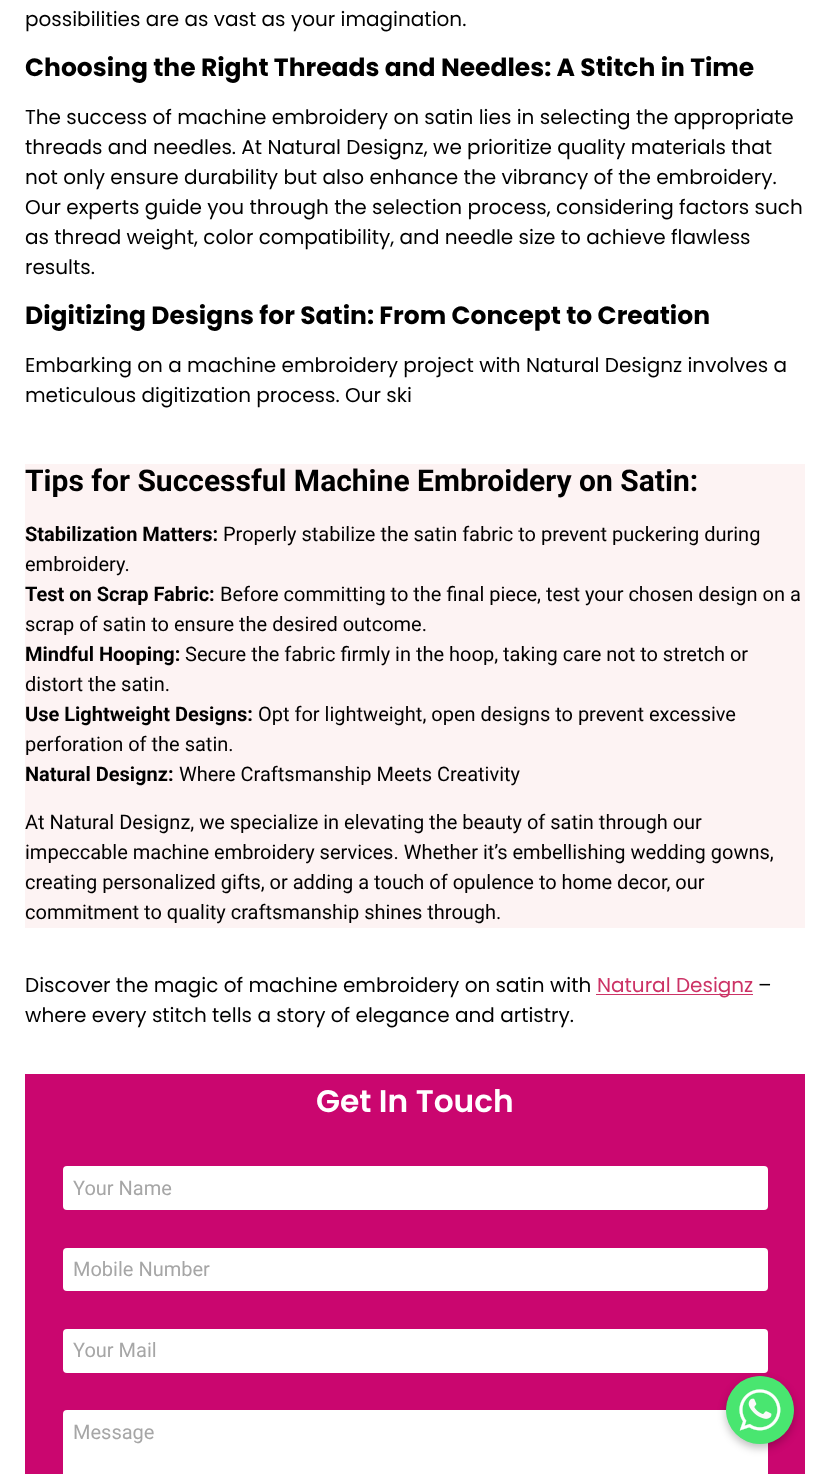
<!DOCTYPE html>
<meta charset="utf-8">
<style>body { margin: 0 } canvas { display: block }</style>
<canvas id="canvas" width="829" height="1474"></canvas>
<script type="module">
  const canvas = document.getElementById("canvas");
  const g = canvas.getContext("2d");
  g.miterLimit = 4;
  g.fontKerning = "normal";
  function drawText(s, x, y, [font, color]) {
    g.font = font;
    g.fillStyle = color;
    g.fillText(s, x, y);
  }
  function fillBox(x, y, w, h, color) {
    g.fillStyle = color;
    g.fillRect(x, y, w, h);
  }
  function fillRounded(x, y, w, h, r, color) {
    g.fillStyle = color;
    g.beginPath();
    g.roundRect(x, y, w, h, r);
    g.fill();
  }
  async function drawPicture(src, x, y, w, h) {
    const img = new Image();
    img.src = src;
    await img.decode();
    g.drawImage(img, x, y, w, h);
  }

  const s1 = ["20px Poppins", "#000000"];
  const s2 = ["bold 25px Poppins", "#000000"];
  const s3 = ["bold 30px Roboto", "#000000"];
  const s4 = ["bold 20px Roboto", "#000000"];
  const s5 = ["20px Roboto", "#000000"];
  const s6 = ["20px Poppins", "#CC3366"];
  const s7 = ["600 31.25px Poppins", "#FFFFFF"];
  const s8 = ["20px Roboto", "#A6A6A6"];

  fillBox(0, 0, 829, 1474, "#FFFFFF");
  drawText("possibilities are as vast as your imagination.", 25, 26, s1);
  drawText("Choosing the Right Threads and Needles: A Stitch in Time", 25, 76, s2);
  drawText("The success of machine embroidery on satin lies in selecting the appropriate", 25, 124, s1);
  drawText("threads and needles. At Natural Designz, we prioritize quality materials that", 25, 154, s1);
  drawText("not only ensure durability but also enhance the vibrancy of the embroidery.", 25, 184, s1);
  drawText("Our experts guide you through the selection process, considering factors such", 25, 214, s1);
  drawText("as thread weight, color compatibility, and needle size to achieve flawless", 25, 244, s1);
  drawText("results.", 25, 274, s1);
  drawText("Digitizing Designs for Satin: From Concept to Creation", 25, 324, s2);
  drawText("Embarking on a machine embroidery project with Natural Designz involves a", 25, 372, s1);
  drawText("meticulous digitization process. Our ski", 25, 402, s1);
  fillBox(25, 464, 780, 464, "#FDF3F3");
  drawText("Tips for Successful Machine Embroidery on Satin:", 25, 491, s3);
  drawText("Stabilization Matters:", 25, 541, s4);
  drawText("Properly stabilize the satin fabric to prevent puckering during", 223, 541, s5);
  drawText("embroidery.", 25, 571, s5);
  drawText("Test on Scrap Fabric:", 25, 601, s4);
  drawText("Before committing to the final piece, test your chosen design on a", 220, 601, s5);
  drawText("scrap of satin to ensure the desired outcome.", 25, 631, s5);
  drawText("Mindful Hooping:", 25, 661, s4);
  drawText("Secure the fabric firmly in the hoop, taking care not to stretch or", 185, 661, s5);
  drawText("distort the satin.", 25, 691, s5);
  drawText("Use Lightweight Designs:", 25, 721, s4);
  drawText("Opt for lightweight, open designs to prevent excessive", 258, 721, s5);
  drawText("perforation of the satin.", 25, 751, s5);
  drawText("Natural Designz:", 25, 781, s4);
  drawText("Where Craftsmanship Meets Creativity", 179, 781, s5);
  drawText("At Natural Designz, we specialize in elevating the beauty of satin through our", 25, 829, s5);
  drawText("impeccable machine embroidery services. Whether it’s embellishing wedding gowns,", 25, 859, s5);
  drawText("creating personalized gifts, or adding a touch of opulence to home decor, our", 25, 889, s5);
  drawText("commitment to quality craftsmanship shines through.", 25, 919, s5);
  drawText("Discover the magic of machine embroidery on satin with", 25, 992, s1);
  fillBox(596, 994, 157, 1, "#CC3366");
  drawText("Natural Designz", 597, 992, s6);
  drawText("–", 758, 992, s1);
  drawText("where every stitch tells a story of elegance and artistry.", 25, 1022, s1);
  fillBox(25, 1074, 780, 400, "#CA066F");
  drawText("Get In Touch", 316, 1112, s7);
  fillRounded(63, 1166, 705, 44, 4, "#FFFFFF");
  drawText("Your Name", 73, 1195, s8);
  fillRounded(63, 1248, 705, 43, 4, "#FFFFFF");
  drawText("Mobile Number", 73, 1276, s8);
  fillRounded(63, 1329, 705, 44, 4, "#FFFFFF");
  drawText("Your Mail", 73, 1357, s8);
  fillRounded(63, 1410, 705, 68, 4, "#FFFFFF");
  drawText("Message", 73, 1439, s8);
  g.fillStyle = "rgba(0, 0, 0, 0.25)";
  g.filter = "blur(4px)";
  g.beginPath();
  g.roundRect(726, 1380, 68, 68, 34);
  g.fill();
  g.filter = "none";
  g.fillStyle = "#49E670";
  g.beginPath();
  g.arc(760, 1410, 34, 0, Math.PI * 2);
  g.fill();
  await drawPicture("pic1.png", 726, 1376, 68, 68);
</script>
